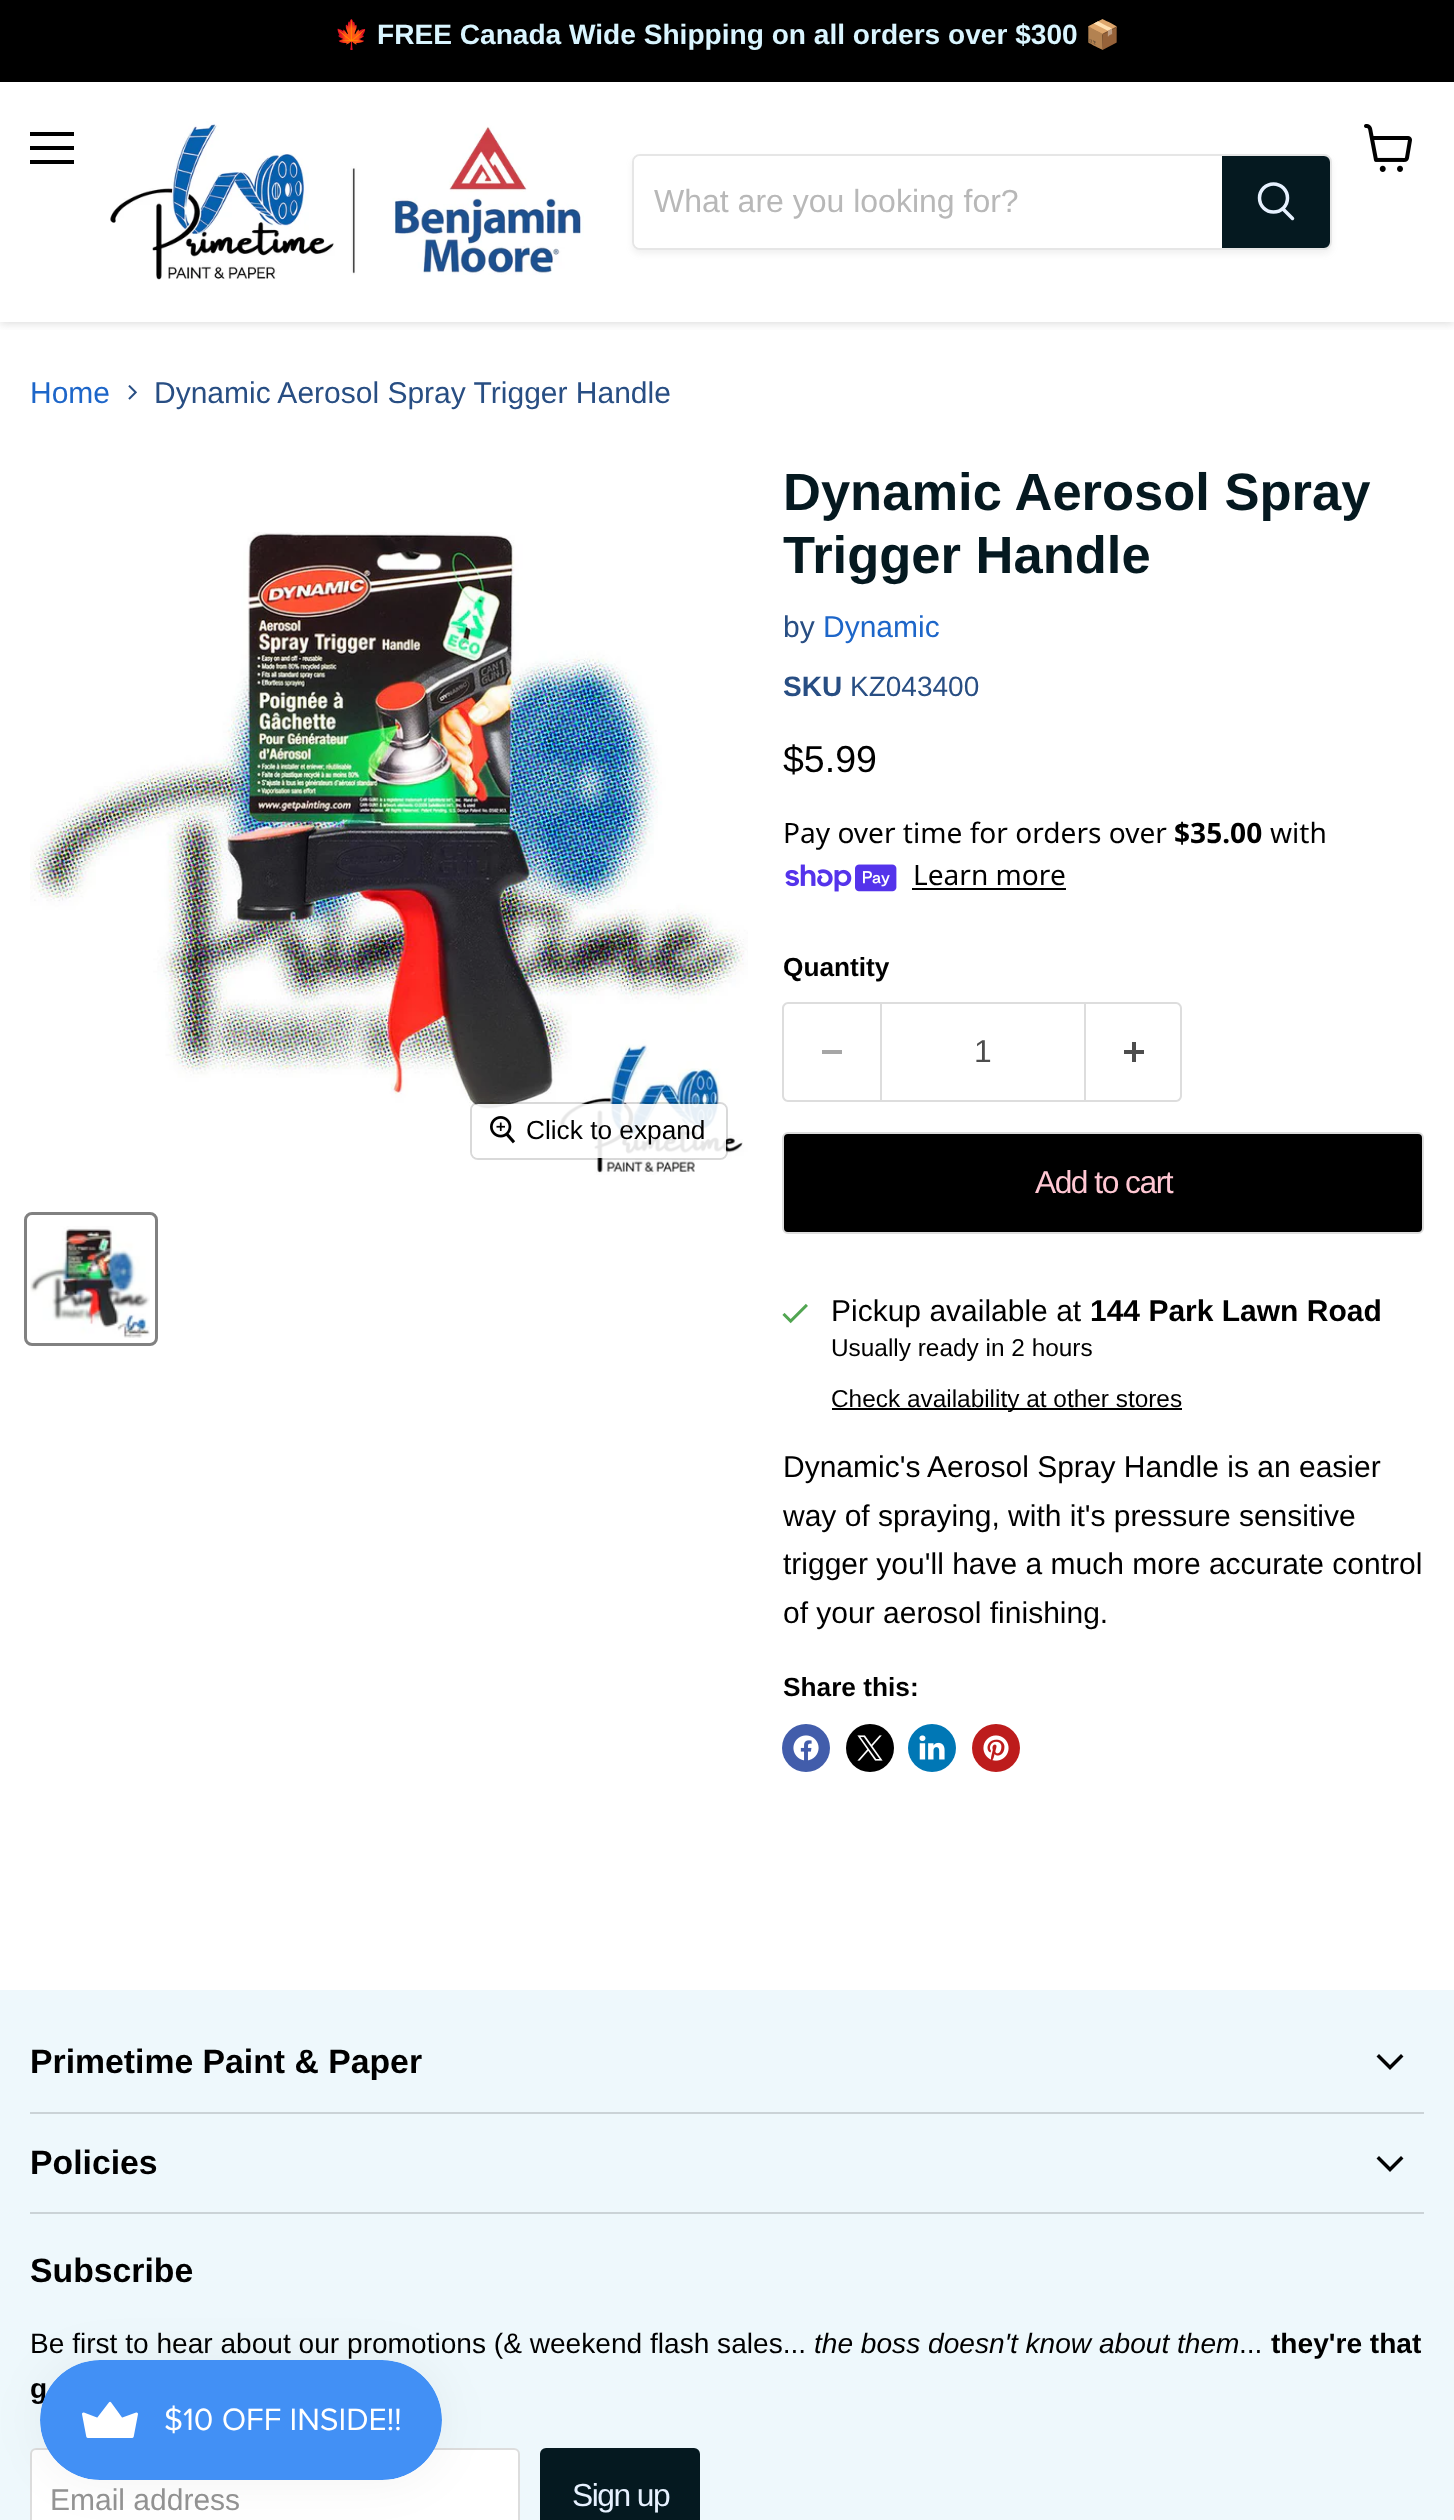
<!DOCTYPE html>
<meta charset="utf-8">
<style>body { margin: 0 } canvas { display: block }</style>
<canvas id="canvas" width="1454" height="2520"></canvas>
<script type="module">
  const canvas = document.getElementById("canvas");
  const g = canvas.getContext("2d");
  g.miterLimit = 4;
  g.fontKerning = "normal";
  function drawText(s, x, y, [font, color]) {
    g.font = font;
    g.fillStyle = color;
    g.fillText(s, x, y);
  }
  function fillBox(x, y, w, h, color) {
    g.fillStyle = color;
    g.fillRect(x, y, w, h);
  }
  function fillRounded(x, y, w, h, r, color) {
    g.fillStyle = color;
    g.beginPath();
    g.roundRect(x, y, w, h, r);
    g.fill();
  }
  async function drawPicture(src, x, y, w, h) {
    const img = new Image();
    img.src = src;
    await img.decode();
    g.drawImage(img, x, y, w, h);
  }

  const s1 = ["bold 28.1px Noto Color Emoji", "#D9F5FF"];
  const s2 = ["bold 28.1px Liberation Sans", "#D9F5FF"];
  const s3 = ["32px Liberation Sans", "#B8B8B8"];
  const s4 = ["30px Liberation Sans", "#1D66C9"];
  const s5 = ["30px Liberation Sans", "#284E83"];
  const s6 = ["26.25px Liberation Sans", "#000000"];
  const s7 = ["bold 52.5px Liberation Sans", "#051920"];
  const s8 = ["bold 28px Liberation Sans", "#284E83"];
  const s9 = ["28px Liberation Sans", "#284E83"];
  const s10 = ["37.5px Liberation Sans", "#000000"];
  const s11 = ["28.1px Noto Sans", "#000000"];
  const s12 = ["bold 28.1px Noto Sans", "#000000"];
  const s13 = ["bold 26.25px Liberation Sans", "#000000"];
  const s14 = ["31.75px Liberation Sans", "#4D4D4D"];
  const s15 = ["31.75px Liberation Sans", "#FFC7D3"];
  const s16 = ["30px Liberation Sans", "#000000"];
  const s17 = ["bold 30px Liberation Sans", "#000000"];
  const s18 = ["24.4px Liberation Sans", "#000000"];
  const s19 = ["bold 33.75px Liberation Sans", "#000000"];
  const s20 = ["28.1px Liberation Sans", "#000000"];
  const s21 = ["italic 28.1px Liberation Sans", "#000000"];
  const s22 = ["bold 28.1px Liberation Sans", "#000000"];
  const s23 = ["30px Liberation Sans", "#949494"];
  const s24 = ["31.75px Liberation Sans", "#E7F1FF"];

  fillBox(0, 0, 1454, 2520, "#FFFFFF");
  g.save();
  g.beginPath();
  g.rect(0, 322, 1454, 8);
  g.clip();
  g.fillStyle = "rgba(128, 128, 128, 0.25)";
  g.filter = "blur(4px)";
  g.beginPath();
  g.rect(0, 84, 1454, 240);
  g.fill();
  g.filter = "none";
  g.restore();
  fillBox(0, 0, 1454, 82, "#000000");
  drawText("🍁", 334, 44, s1);
  drawText("FREE Canada Wide Shipping on all orders over $300", 377, 44, s2);
  drawText("📦", 1085, 44, s1);
  fillBox(30, 132, 44, 4, "#000000");
  fillBox(30, 146, 44, 4, "#000000");
  fillBox(30, 160, 44, 4, "#000000");
  await drawPicture("pic1.png", 1364, 124, 48, 48);
  await drawPicture("pic2.png", 110, 121, 474, 159);
  g.save();
  g.beginPath();
  g.moveTo(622, 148);
  g.lineTo(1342, 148);
  g.lineTo(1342, 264);
  g.lineTo(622, 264);
  g.closePath();
  g.moveTo(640, 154);
  g.lineTo(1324, 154);
  g.bezierCurveTo(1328.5, 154, 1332, 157.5, 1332, 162);
  g.lineTo(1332, 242);
  g.bezierCurveTo(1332, 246.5, 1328.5, 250, 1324, 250);
  g.lineTo(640, 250);
  g.bezierCurveTo(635.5, 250, 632, 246.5, 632, 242);
  g.lineTo(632, 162);
  g.bezierCurveTo(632, 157.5, 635.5, 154, 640, 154);
  g.closePath();
  g.clip("evenodd");
  g.fillStyle = "rgba(128, 128, 128, 0.11)";
  g.filter = "blur(3px)";
  g.beginPath();
  g.roundRect(632, 158, 700, 96, 8);
  g.fill();
  g.filter = "none";
  g.restore();
  g.beginPath();
  g.roundRect(633, 155, 698, 94, 7);
  g.strokeStyle = "rgba(128, 128, 128, 0.2)";
  g.lineWidth = 2;
  g.stroke();
  g.fillStyle = "#FFFFFF";
  g.beginPath();
  g.roundRect(634, 156, 588, 92, [6, 0, 0, 6]);
  g.fill();
  drawText("What are you looking for?", 654, 212, s3);
  g.fillStyle = "#051920";
  g.beginPath();
  g.roundRect(1223, 157, 106, 90, [0, 5, 5, 0]);
  g.fill();
  g.strokeStyle = "#051920";
  g.stroke();
  g.beginPath();
  g.moveTo(1292.5, 218.5);
  g.lineTo(1283, 209);
  g.strokeStyle = "#E7F1FF";
  g.lineWidth = 3.5;
  g.lineCap = "round";
  g.stroke();
  g.beginPath();
  g.arc(1273.5, 198, 14, 0, Math.PI * 2);
  g.stroke();
  drawText("Home", 30, 403, s4);
  await drawPicture("pic3.png", 128, 385, 9, 15);
  drawText("Dynamic Aerosol Spray Trigger Handle", 154, 403, s5);
  await drawPicture("pic4.png", 30, 532, 718, 643);
  g.beginPath();
  g.roundRect(471, 1103, 256, 56, 7);
  g.strokeStyle = "rgba(0, 0, 0, 0.15)";
  g.lineWidth = 2;
  g.stroke();
  fillRounded(472, 1104, 254, 54, 6, "rgba(255, 255, 255, 0.9)");
  await drawPicture("pic5.png", 490, 1116, 26, 28);
  drawText("Click to expand", 526, 1139, s6);
  g.beginPath();
  g.roundRect(25.5, 1213.5, 131, 131, 6.5);
  g.strokeStyle = "#818181";
  g.lineWidth = 3;
  g.stroke();
  await drawPicture("pic6.png", 30, 1226, 120, 112);
  drawText("Dynamic Aerosol Spray", 783, 510, s7);
  drawText("Trigger Handle", 783, 573, s7);
  drawText("by", 783, 637, s5);
  drawText("Dynamic", 823, 637, s4);
  drawText("SKU", 783, 696, s8);
  drawText("KZ043400", 850, 696, s9);
  drawText("$5.99", 783, 772, s10);
  drawText("Pay over time for orders over", 783, 843, s11);
  drawText("$35.00", 1174, 843, s12);
  drawText("with", 1270, 843, s11);
  await drawPicture("pic7.png", 785, 864, 112, 28);
  drawText("Learn more", 913, 885, s11);
  fillBox(912, 888, 154, 2, "#000000");
  drawText("Quantity", 783, 976, s13);
  g.fillStyle = "#DDDDDD";
  g.beginPath();
  g.moveTo(788, 1002);
  g.lineTo(880, 1002);
  g.lineTo(880, 1102);
  g.lineTo(788, 1102);
  g.bezierCurveTo(785, 1102, 782, 1099, 782, 1096);
  g.lineTo(782, 1008);
  g.bezierCurveTo(782, 1005, 785, 1002, 788, 1002);
  g.closePath();
  g.moveTo(788, 1004);
  g.lineTo(880, 1004);
  g.lineTo(880, 1100);
  g.lineTo(788, 1100);
  g.bezierCurveTo(786, 1100, 784, 1098, 784, 1096);
  g.lineTo(784, 1008);
  g.bezierCurveTo(784, 1006, 786, 1004, 788, 1004);
  g.closePath();
  g.fill("evenodd");
  fillBox(822, 1050, 20, 4, "#A6A6A6");
  g.strokeStyle = "#DDDDDD";
  g.lineWidth = 2;
  g.strokeRect(881, 1003, 204, 98);
  drawText("1", 974, 1062, s14);
  g.fillStyle = "#DDDDDD";
  g.beginPath();
  g.moveTo(1086, 1002);
  g.lineTo(1176, 1002);
  g.bezierCurveTo(1179, 1002, 1182, 1005, 1182, 1008);
  g.lineTo(1182, 1096);
  g.bezierCurveTo(1182, 1099, 1179, 1102, 1176, 1102);
  g.lineTo(1086, 1102);
  g.closePath();
  g.moveTo(1086, 1004);
  g.lineTo(1176, 1004);
  g.bezierCurveTo(1178, 1004, 1180, 1006, 1180, 1008);
  g.lineTo(1180, 1096);
  g.bezierCurveTo(1180, 1098, 1178, 1100, 1176, 1100);
  g.lineTo(1086, 1100);
  g.closePath();
  g.fill("evenodd");
  await drawPicture("pic8.png", 1124, 1042, 20, 20);
  g.fillStyle = "#000000";
  g.beginPath();
  g.roundRect(783, 1133, 640, 100, 5);
  g.fill();
  g.stroke();
  g.letterSpacing = "-1.5px";
  drawText("Add to cart", 1035, 1193, s15);
  await drawPicture("pic9.png", 782, 1303, 26, 21);
  g.letterSpacing = "0px";
  drawText("Pickup available at", 831, 1321, s16);
  drawText("144 Park Lawn Road", 1090, 1321, s17);
  drawText("Usually ready in 2 hours", 831, 1356, s18);
  fillBox(832, 1408, 350, 2, "#000000");
  drawText("Check availability at other stores", 831, 1407, s18);
  drawText("Dynamic's Aerosol Spray Handle is an easier", 783, 1477, s16);
  drawText("way of spraying, with it's pressure sensitive", 783, 1526, s16);
  drawText("trigger you'll have a much more accurate control", 783, 1574, s16);
  drawText("of your aerosol finishing.", 783, 1623, s16);
  drawText("Share this:", 783, 1696, s13);
  g.fillStyle = "#425DAB";
  g.beginPath();
  g.arc(806, 1748, 24, 0, Math.PI * 2);
  g.fill();
  await drawPicture("pic10.png", 793, 1735, 26, 26);
  g.fillStyle = "#000000";
  g.beginPath();
  g.arc(870, 1748, 24, 0, Math.PI * 2);
  g.fill();
  await drawPicture("pic11.png", 857, 1735, 26, 26);
  g.fillStyle = "#0077B5";
  g.beginPath();
  g.arc(932, 1748, 24, 0, Math.PI * 2);
  g.fill();
  await drawPicture("pic12.png", 919, 1735, 26, 25);
  g.fillStyle = "#BD1C1C";
  g.beginPath();
  g.arc(996, 1748, 24, 0, Math.PI * 2);
  g.fill();
  await drawPicture("pic13.png", 983, 1735, 26, 26);
  fillBox(0, 1990, 1454, 530, "#EEF8FC");
  fillBox(30, 2112, 1394, 2, "#CBD3D7");
  drawText("Primetime Paint & Paper", 30, 2073, s19);
  g.beginPath();
  g.moveTo(1390, 2067.5);
  g.lineTo(1401, 2056.5);
  g.moveTo(1390, 2067.5);
  g.lineTo(1379, 2056.5);
  g.strokeStyle = "#030303";
  g.lineWidth = 3.5;
  g.lineCap = "square";
  g.stroke();
  fillBox(30, 2212, 1394, 2, "#CBD3D7");
  drawText("Policies", 30, 2174, s19);
  g.beginPath();
  g.moveTo(1390, 2169.5);
  g.lineTo(1401, 2158.5);
  g.moveTo(1390, 2169.5);
  g.lineTo(1379, 2158.5);
  g.stroke();
  drawText("Subscribe", 30, 2282, s19);
  drawText("Be first to hear about our promotions (& weekend flash sales...", 30, 2353, s20);
  drawText("the boss doesn't know about them", 814, 2353, s21);
  drawText("...", 1239, 2353, s20);
  drawText("they're that", 1271, 2353, s22);
  drawText("g", 30, 2398, s22);
  g.fillStyle = "#FFFFFF";
  g.beginPath();
  g.roundRect(31, 2449, 488, 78, 5);
  g.fill();
  g.strokeStyle = "#DDDDDD";
  g.lineWidth = 2;
  g.stroke();
  drawText("Email address", 50, 2510, s23);
  g.fillStyle = "#051920";
  g.beginPath();
  g.roundRect(541, 2449, 158, 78, 5);
  g.fill();
  g.strokeStyle = "#051920";
  g.stroke();
  g.letterSpacing = "-1.5px";
  drawText("Sign up", 572, 2506, s24);
  g.fillStyle = "rgba(0, 0, 0, 0.05)";
  g.filter = "blur(25px)";
  g.beginPath();
  g.roundRect(40, 2360, 402, 120, 60);
  g.fill();
  g.filter = "none";
  await drawPicture("pic14.png", 40, 2360, 402, 120);
</script>
